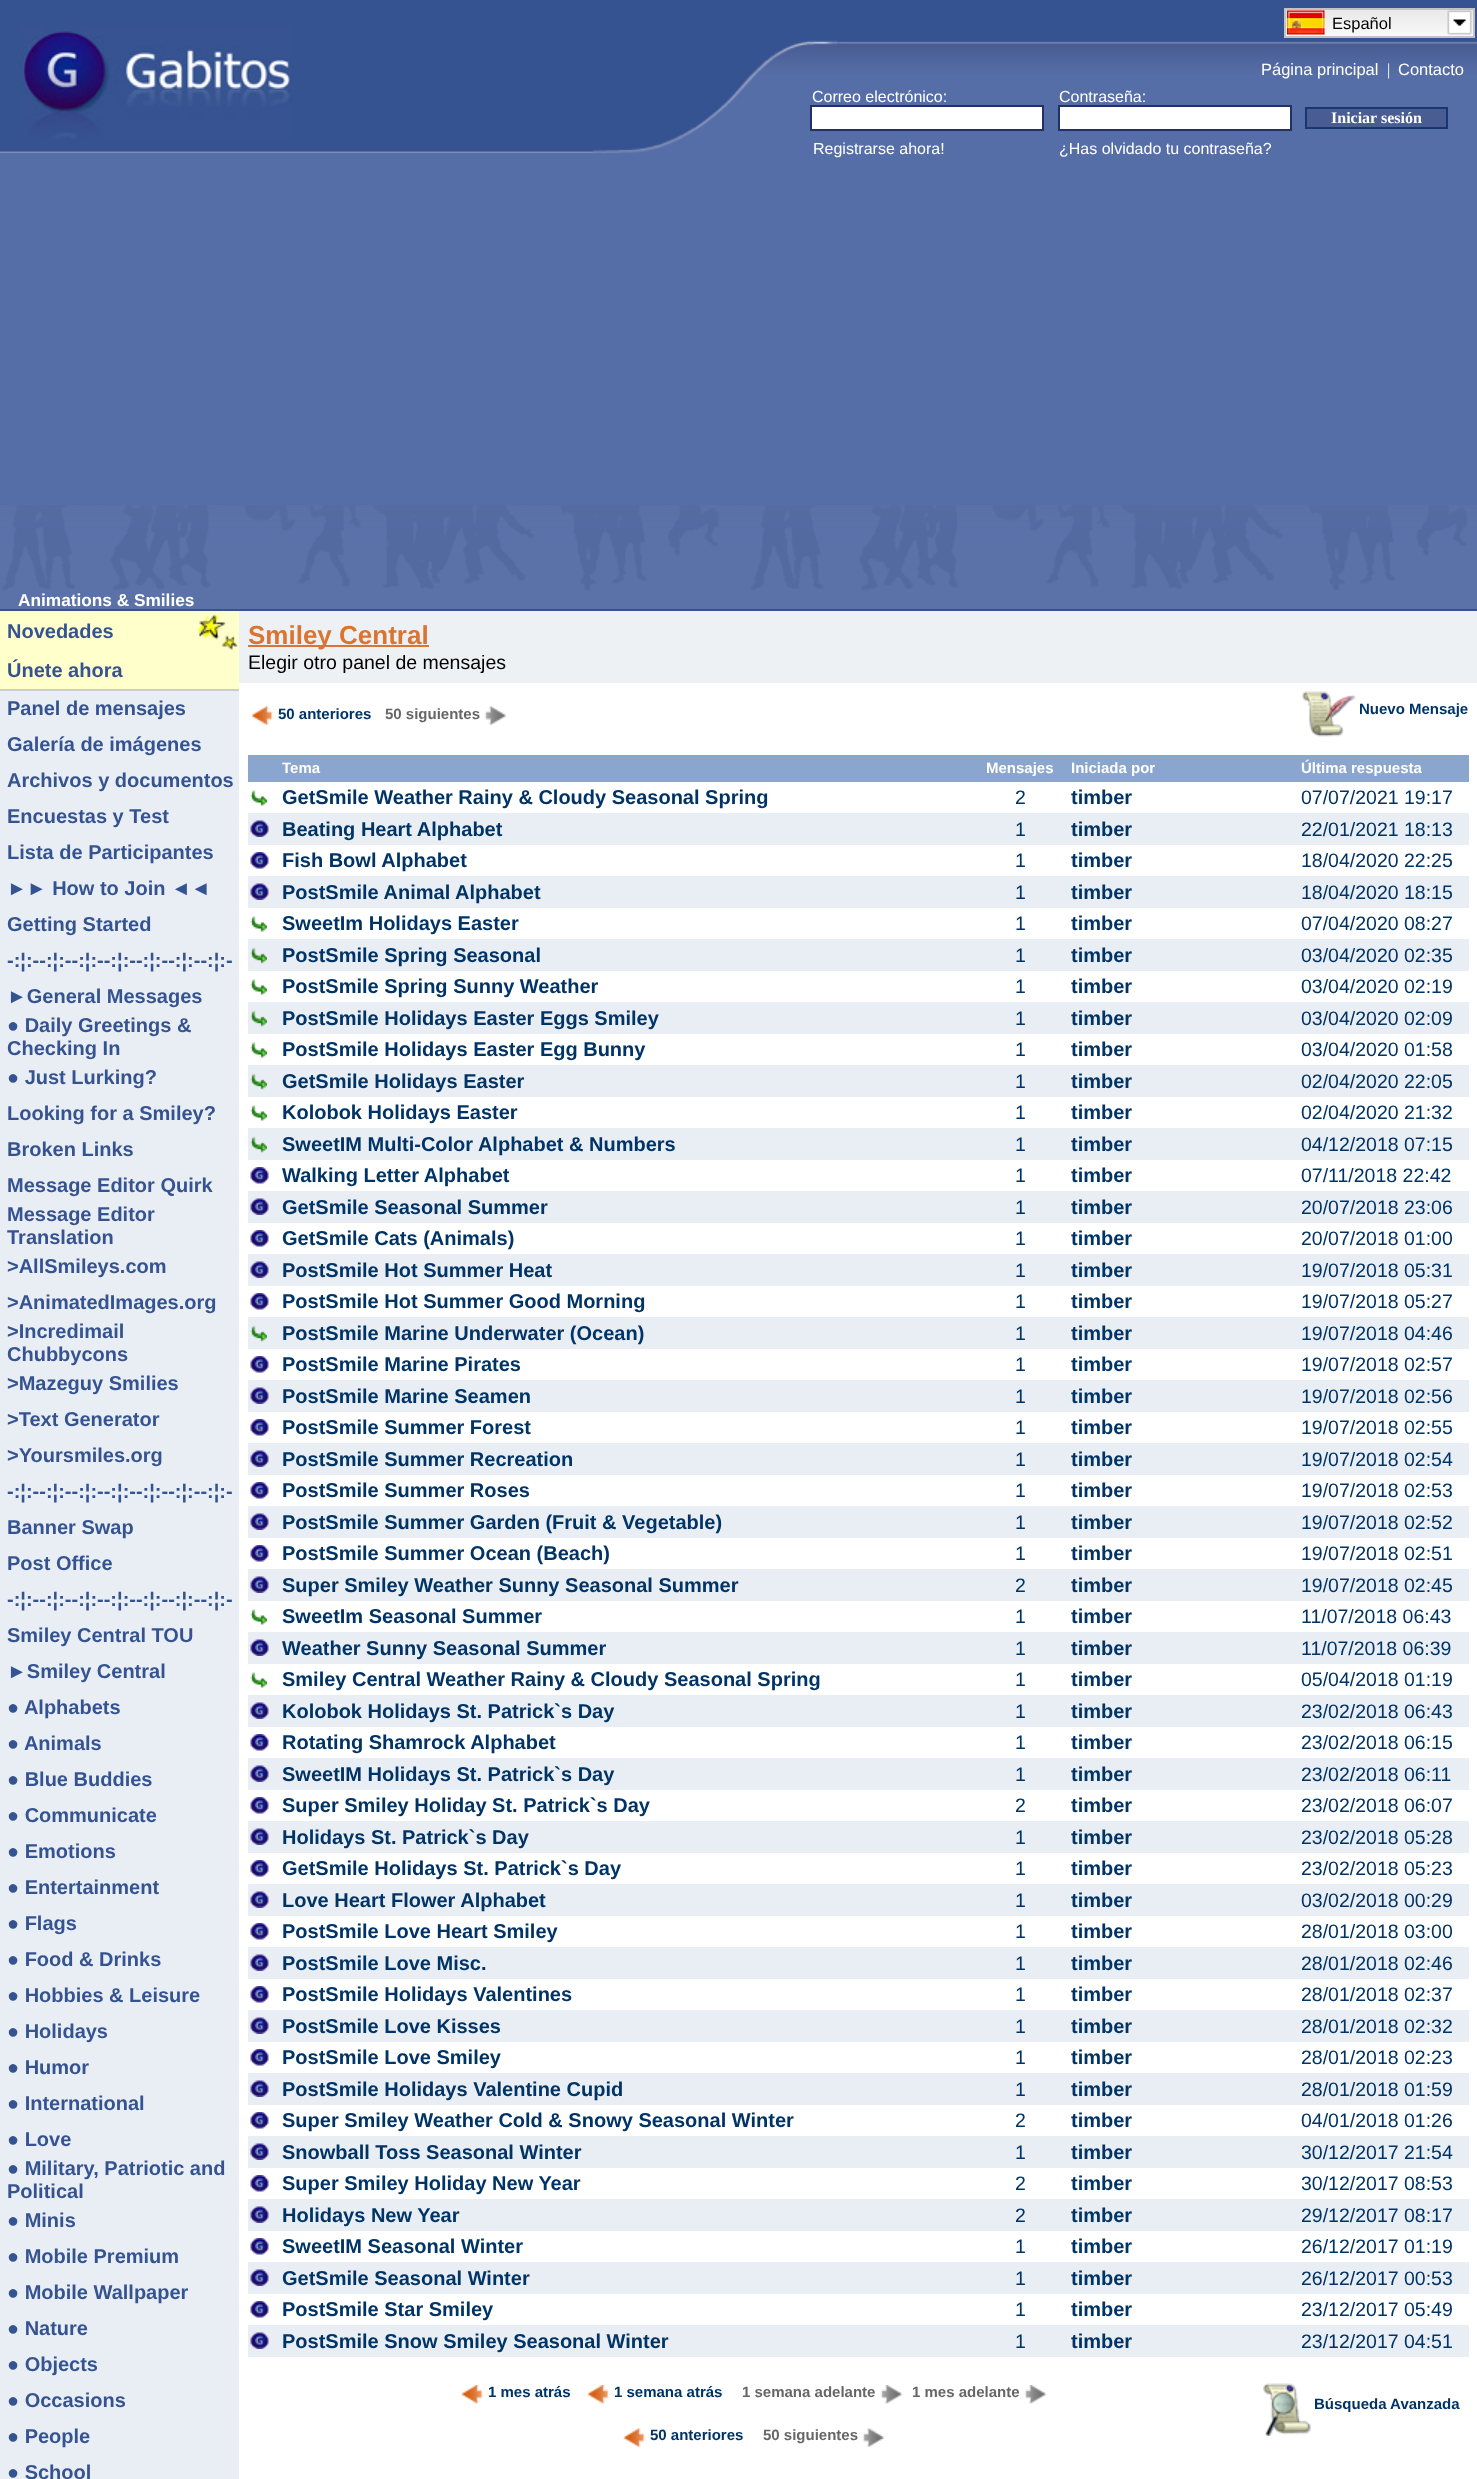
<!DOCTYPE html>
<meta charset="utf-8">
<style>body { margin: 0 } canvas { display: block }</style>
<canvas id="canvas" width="1477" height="2479"></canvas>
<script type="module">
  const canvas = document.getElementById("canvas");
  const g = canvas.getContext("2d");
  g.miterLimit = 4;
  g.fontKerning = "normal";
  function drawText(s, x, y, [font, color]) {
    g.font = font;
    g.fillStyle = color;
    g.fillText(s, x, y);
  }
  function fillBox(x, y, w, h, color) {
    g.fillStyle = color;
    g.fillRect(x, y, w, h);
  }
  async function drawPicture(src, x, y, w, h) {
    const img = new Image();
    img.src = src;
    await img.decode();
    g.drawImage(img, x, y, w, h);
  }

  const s1 = ["16.5px Liberation Sans", "#000000"];
  const s2 = ["16.5px Liberation Sans", "#FFFFFF"];
  const s3 = ["16.5px Liberation Serif", "#FFFFFF"];
  const s4 = ["16px Liberation Sans", "#FFFFFF"];
  const s5 = ["bold 16px Liberation Serif", "#FFFFFF"];
  const s6 = ["bold 17.25px Liberation Sans", "#FFFFFF"];
  const s7 = ["bold 20px Liberation Sans", "#365391"];
  const s8 = ["bold 26px Liberation Sans", "#DA7430"];
  const s9 = ["19.5px Liberation Sans", "#000000"];
  const s10 = ["bold 15px Liberation Sans", "#003366"];
  const s11 = ["bold 15px Liberation Sans", "#666666"];
  const s12 = ["bold 15px Liberation Sans", "#FFFFFF"];
  const s13 = ["bold 20px Liberation Sans", "#003366"];
  const s14 = ["19.5px Liberation Sans", "#003366"];

  fillBox(0, 0, 1477, 2479, "#365391");
  await drawPicture("pic1.png", 21, 26, 272, 113);
  await drawPicture("pic2.png", 591, 40, 886, 131);
  await drawPicture("pic3.png", 1286, 10, 187, 26);
  g.strokeStyle = "#C3C3C3";
  g.lineWidth = 2;
  g.strokeRect(1285, 9, 189, 28);
  await drawPicture("pic4.png", 1287, 10, 38, 25);
  drawText("Español", 1332, 29, s1);
  await drawPicture("pic5.png", 1447, 10, 25, 25);
  drawText("Página principal", 1261, 75, s2);
  drawText("|", 1387, 75, s3);
  drawText("Contacto", 1398, 75, s2);
  drawText("Correo electrónico:", 812, 102, s4);
  drawText("Contraseña:", 1059, 102, s4);
  g.beginPath();
  g.rect(811, 106, 232, 24);
  g.fill();
  g.strokeStyle = "#233065";
  g.stroke();
  g.beginPath();
  g.rect(1059, 106, 232, 24);
  g.fill();
  g.stroke();
  g.fillStyle = "#495D93";
  g.beginPath();
  g.rect(1306, 108, 141, 20);
  g.fill();
  g.strokeStyle = "#183770";
  g.stroke();
  drawText("Iniciar sesión", 1331, 123, s5);
  drawText("Registrarse ahora!", 813, 154, s4);
  drawText("¿Has olvidado tu contraseña?", 1059, 154, s4);
  fillBox(0, 153, 591, 18, "#566EA7");
  await drawPicture("pic6.png", 0, 151, 591, 2);
  fillBox(0, 171, 1477, 334, "#566EA7");
  await drawPicture("pic7.png", 0, 505, 1477, 86);
  fillBox(0, 591, 1477, 18, "#5B72A9");
  drawText("Animations & Smilies", 18, 606, s6);
  fillBox(239, 683, 1238, 1796, "#FFFFFF");
  fillBox(0, 691, 239, 1788, "#E8EEF4");
  fillBox(0, 611, 239, 78, "#FFFFCC");
  drawText("Novedades", 7, 638, s7);
  await drawPicture("pic8.png", 197, 614, 41, 36);
  drawText("Únete ahora", 7, 677, s7);
  fillBox(0, 689, 239, 2, "#CCCCCC");
  drawText("Panel de mensajes", 7, 715, s7);
  drawText("Galería de imágenes", 7, 751, s7);
  drawText("Archivos y documentos", 7, 787, s7);
  drawText("Encuestas y Test", 7, 823, s7);
  drawText("Lista de Participantes", 7, 859, s7);
  drawText("►► How to Join ◄◄", 7, 895, s7);
  drawText("Getting Started", 7, 931, s7);
  drawText("-:¦:--:¦:--:¦:--:¦:--:¦:--:¦:--:¦:-", 7, 967, s7);
  drawText("►General Messages", 7, 1003, s7);
  drawText("● Daily Greetings &", 7, 1032, s7);
  drawText("Checking In", 7, 1055, s7);
  drawText("● Just Lurking?", 7, 1084, s7);
  drawText("Looking for a Smiley?", 7, 1120, s7);
  drawText("Broken Links", 7, 1156, s7);
  drawText("Message Editor Quirk", 7, 1192, s7);
  drawText("Message Editor", 7, 1221, s7);
  drawText("Translation", 7, 1244, s7);
  drawText(">AllSmileys.com", 7, 1273, s7);
  drawText(">AnimatedImages.org", 7, 1309, s7);
  drawText(">Incredimail", 7, 1338, s7);
  drawText("Chubbycons", 7, 1361, s7);
  drawText(">Mazeguy Smilies", 7, 1390, s7);
  drawText(">Text Generator", 7, 1426, s7);
  drawText(">Yoursmiles.org", 7, 1462, s7);
  drawText("-:¦:--:¦:--:¦:--:¦:--:¦:--:¦:--:¦:-", 7, 1498, s7);
  drawText("Banner Swap", 7, 1534, s7);
  drawText("Post Office", 7, 1570, s7);
  drawText("-:¦:--:¦:--:¦:--:¦:--:¦:--:¦:--:¦:-", 7, 1606, s7);
  drawText("Smiley Central TOU", 7, 1642, s7);
  drawText("►Smiley Central", 7, 1678, s7);
  drawText("● Alphabets", 7, 1714, s7);
  drawText("● Animals", 7, 1750, s7);
  drawText("● Blue Buddies", 7, 1786, s7);
  drawText("● Communicate", 7, 1822, s7);
  drawText("● Emotions", 7, 1858, s7);
  drawText("● Entertainment", 7, 1894, s7);
  drawText("● Flags", 7, 1930, s7);
  drawText("● Food & Drinks", 7, 1966, s7);
  drawText("● Hobbies & Leisure", 7, 2002, s7);
  drawText("● Holidays", 7, 2038, s7);
  drawText("● Humor", 7, 2074, s7);
  drawText("● International", 7, 2110, s7);
  drawText("● Love", 7, 2146, s7);
  drawText("● Military, Patriotic and", 7, 2175, s7);
  drawText("Political", 7, 2198, s7);
  drawText("● Minis", 7, 2227, s7);
  drawText("● Mobile Premium", 7, 2263, s7);
  drawText("● Mobile Wallpaper", 7, 2299, s7);
  drawText("● Nature", 7, 2335, s7);
  drawText("● Objects", 7, 2371, s7);
  drawText("● Occasions", 7, 2407, s7);
  drawText("● People", 7, 2443, s7);
  drawText("● School", 7, 2479, s7);
  fillBox(239, 611, 1238, 72, "#EEF1F4");
  fillBox(248, 645, 181, 2, "#DA7430");
  drawText("Smiley Central", 248, 644, s8);
  drawText("Elegir otro panel de mensajes", 248, 669, s9);
  await drawPicture("pic9.png", 251, 706, 23, 20);
  drawText("50 anteriores", 278, 719, s10);
  drawText("50 siguientes", 385, 719, s11);
  await drawPicture("pic10.png", 484, 706, 23, 20);
  await drawPicture("pic11.png", 1302, 691, 54, 46);
  drawText("Nuevo Mensaje", 1359, 714, s10);
  fillBox(248, 755, 1221, 27, "#8BA6CE");
  drawText("Tema", 282, 773, s12);
  drawText("Mensajes", 986, 773, s12);
  drawText("Iniciada por", 1071, 773, s12);
  drawText("Última respuesta", 1301, 773, s12);
  await drawPicture("pic12.png", 250, 790, 17, 16);
  drawText("GetSmile Weather Rainy & Cloudy Seasonal Spring", 282, 804, s13);
  drawText("2", 1015, 804, s14);
  drawText("timber", 1071, 804, s13);
  drawText("07/07/2021 19:17", 1301, 804, s14);
  fillBox(248, 813, 1221, 32, "#E8EEF4");
  await drawPicture("pic13.png", 250, 820, 19, 17);
  drawText("Beating Heart Alphabet", 282, 836, s13);
  drawText("1", 1015, 836, s14);
  drawText("timber", 1071, 836, s13);
  drawText("22/01/2021 18:13", 1301, 836, s14);
  await drawPicture("pic14.png", 250, 852, 19, 17);
  drawText("Fish Bowl Alphabet", 282, 867, s13);
  drawText("1", 1015, 867, s14);
  drawText("timber", 1071, 867, s13);
  drawText("18/04/2020 22:25", 1301, 867, s14);
  fillBox(248, 876, 1221, 32, "#E8EEF4");
  await drawPicture("pic13.png", 250, 883, 19, 17);
  drawText("PostSmile Animal Alphabet", 282, 899, s13);
  drawText("1", 1015, 899, s14);
  drawText("timber", 1071, 899, s13);
  drawText("18/04/2020 18:15", 1301, 899, s14);
  await drawPicture("pic12.png", 250, 916, 17, 16);
  drawText("SweetIm Holidays Easter", 282, 930, s13);
  drawText("1", 1015, 930, s14);
  drawText("timber", 1071, 930, s13);
  drawText("07/04/2020 08:27", 1301, 930, s14);
  fillBox(248, 939, 1221, 32, "#E8EEF4");
  await drawPicture("pic15.png", 250, 947, 17, 17);
  drawText("PostSmile Spring Seasonal", 282, 962, s13);
  drawText("1", 1015, 962, s14);
  drawText("timber", 1071, 962, s13);
  drawText("03/04/2020 02:35", 1301, 962, s14);
  await drawPicture("pic12.png", 250, 979, 17, 16);
  drawText("PostSmile Spring Sunny Weather", 282, 993, s13);
  drawText("1", 1015, 993, s14);
  drawText("timber", 1071, 993, s13);
  drawText("03/04/2020 02:19", 1301, 993, s14);
  fillBox(248, 1002, 1221, 32, "#E8EEF4");
  await drawPicture("pic15.png", 250, 1010, 17, 17);
  drawText("PostSmile Holidays Easter Eggs Smiley", 282, 1025, s13);
  drawText("1", 1015, 1025, s14);
  drawText("timber", 1071, 1025, s13);
  drawText("03/04/2020 02:09", 1301, 1025, s14);
  await drawPicture("pic12.png", 250, 1042, 17, 16);
  drawText("PostSmile Holidays Easter Egg Bunny", 282, 1056, s13);
  drawText("1", 1015, 1056, s14);
  drawText("timber", 1071, 1056, s13);
  drawText("03/04/2020 01:58", 1301, 1056, s14);
  fillBox(248, 1065, 1221, 32, "#E8EEF4");
  await drawPicture("pic15.png", 250, 1073, 17, 17);
  drawText("GetSmile Holidays Easter", 282, 1088, s13);
  drawText("1", 1015, 1088, s14);
  drawText("timber", 1071, 1088, s13);
  drawText("02/04/2020 22:05", 1301, 1088, s14);
  await drawPicture("pic12.png", 250, 1105, 17, 16);
  drawText("Kolobok Holidays Easter", 282, 1119, s13);
  drawText("1", 1015, 1119, s14);
  drawText("timber", 1071, 1119, s13);
  drawText("02/04/2020 21:32", 1301, 1119, s14);
  fillBox(248, 1128, 1221, 32, "#E8EEF4");
  await drawPicture("pic15.png", 250, 1136, 17, 17);
  drawText("SweetIM Multi-Color Alphabet & Numbers", 282, 1151, s13);
  drawText("1", 1015, 1151, s14);
  drawText("timber", 1071, 1151, s13);
  drawText("04/12/2018 07:15", 1301, 1151, s14);
  await drawPicture("pic14.png", 250, 1167, 19, 17);
  drawText("Walking Letter Alphabet", 282, 1182, s13);
  drawText("1", 1015, 1182, s14);
  drawText("timber", 1071, 1182, s13);
  drawText("07/11/2018 22:42", 1301, 1182, s14);
  fillBox(248, 1191, 1221, 32, "#E8EEF4");
  await drawPicture("pic13.png", 250, 1198, 19, 17);
  drawText("GetSmile Seasonal Summer", 282, 1214, s13);
  drawText("1", 1015, 1214, s14);
  drawText("timber", 1071, 1214, s13);
  drawText("20/07/2018 23:06", 1301, 1214, s14);
  await drawPicture("pic14.png", 250, 1230, 19, 17);
  drawText("GetSmile Cats (Animals)", 282, 1245, s13);
  drawText("1", 1015, 1245, s14);
  drawText("timber", 1071, 1245, s13);
  drawText("20/07/2018 01:00", 1301, 1245, s14);
  fillBox(248, 1254, 1221, 32, "#E8EEF4");
  await drawPicture("pic13.png", 250, 1261, 19, 17);
  drawText("PostSmile Hot Summer Heat", 282, 1277, s13);
  drawText("1", 1015, 1277, s14);
  drawText("timber", 1071, 1277, s13);
  drawText("19/07/2018 05:31", 1301, 1277, s14);
  await drawPicture("pic14.png", 250, 1293, 19, 17);
  drawText("PostSmile Hot Summer Good Morning", 282, 1308, s13);
  drawText("1", 1015, 1308, s14);
  drawText("timber", 1071, 1308, s13);
  drawText("19/07/2018 05:27", 1301, 1308, s14);
  fillBox(248, 1317, 1221, 32, "#E8EEF4");
  await drawPicture("pic15.png", 250, 1325, 17, 17);
  drawText("PostSmile Marine Underwater (Ocean)", 282, 1340, s13);
  drawText("1", 1015, 1340, s14);
  drawText("timber", 1071, 1340, s13);
  drawText("19/07/2018 04:46", 1301, 1340, s14);
  await drawPicture("pic14.png", 250, 1356, 19, 17);
  drawText("PostSmile Marine Pirates", 282, 1371, s13);
  drawText("1", 1015, 1371, s14);
  drawText("timber", 1071, 1371, s13);
  drawText("19/07/2018 02:57", 1301, 1371, s14);
  fillBox(248, 1380, 1221, 32, "#E8EEF4");
  await drawPicture("pic13.png", 250, 1387, 19, 17);
  drawText("PostSmile Marine Seamen", 282, 1403, s13);
  drawText("1", 1015, 1403, s14);
  drawText("timber", 1071, 1403, s13);
  drawText("19/07/2018 02:56", 1301, 1403, s14);
  await drawPicture("pic14.png", 250, 1419, 19, 17);
  drawText("PostSmile Summer Forest", 282, 1434, s13);
  drawText("1", 1015, 1434, s14);
  drawText("timber", 1071, 1434, s13);
  drawText("19/07/2018 02:55", 1301, 1434, s14);
  fillBox(248, 1443, 1221, 32, "#E8EEF4");
  await drawPicture("pic13.png", 250, 1450, 19, 17);
  drawText("PostSmile Summer Recreation", 282, 1466, s13);
  drawText("1", 1015, 1466, s14);
  drawText("timber", 1071, 1466, s13);
  drawText("19/07/2018 02:54", 1301, 1466, s14);
  await drawPicture("pic14.png", 250, 1482, 19, 17);
  drawText("PostSmile Summer Roses", 282, 1497, s13);
  drawText("1", 1015, 1497, s14);
  drawText("timber", 1071, 1497, s13);
  drawText("19/07/2018 02:53", 1301, 1497, s14);
  fillBox(248, 1506, 1221, 32, "#E8EEF4");
  await drawPicture("pic13.png", 250, 1513, 19, 17);
  drawText("PostSmile Summer Garden (Fruit & Vegetable)", 282, 1529, s13);
  drawText("1", 1015, 1529, s14);
  drawText("timber", 1071, 1529, s13);
  drawText("19/07/2018 02:52", 1301, 1529, s14);
  await drawPicture("pic14.png", 250, 1545, 19, 17);
  drawText("PostSmile Summer Ocean (Beach)", 282, 1560, s13);
  drawText("1", 1015, 1560, s14);
  drawText("timber", 1071, 1560, s13);
  drawText("19/07/2018 02:51", 1301, 1560, s14);
  fillBox(248, 1569, 1221, 32, "#E8EEF4");
  await drawPicture("pic13.png", 250, 1576, 19, 17);
  drawText("Super Smiley Weather Sunny Seasonal Summer", 282, 1592, s13);
  drawText("2", 1015, 1592, s14);
  drawText("timber", 1071, 1592, s13);
  drawText("19/07/2018 02:45", 1301, 1592, s14);
  await drawPicture("pic12.png", 250, 1609, 17, 16);
  drawText("SweetIm Seasonal Summer", 282, 1623, s13);
  drawText("1", 1015, 1623, s14);
  drawText("timber", 1071, 1623, s13);
  drawText("11/07/2018 06:43", 1301, 1623, s14);
  fillBox(248, 1632, 1221, 32, "#E8EEF4");
  await drawPicture("pic13.png", 250, 1639, 19, 17);
  drawText("Weather Sunny Seasonal Summer", 282, 1655, s13);
  drawText("1", 1015, 1655, s14);
  drawText("timber", 1071, 1655, s13);
  drawText("11/07/2018 06:39", 1301, 1655, s14);
  await drawPicture("pic12.png", 250, 1672, 17, 16);
  drawText("Smiley Central Weather Rainy & Cloudy Seasonal Spring", 282, 1686, s13);
  drawText("1", 1015, 1686, s14);
  drawText("timber", 1071, 1686, s13);
  drawText("05/04/2018 01:19", 1301, 1686, s14);
  fillBox(248, 1695, 1221, 32, "#E8EEF4");
  await drawPicture("pic13.png", 250, 1702, 19, 17);
  drawText("Kolobok Holidays St. Patrick`s Day", 282, 1718, s13);
  drawText("1", 1015, 1718, s14);
  drawText("timber", 1071, 1718, s13);
  drawText("23/02/2018 06:43", 1301, 1718, s14);
  await drawPicture("pic14.png", 250, 1734, 19, 17);
  drawText("Rotating Shamrock Alphabet", 282, 1749, s13);
  drawText("1", 1015, 1749, s14);
  drawText("timber", 1071, 1749, s13);
  drawText("23/02/2018 06:15", 1301, 1749, s14);
  fillBox(248, 1758, 1221, 32, "#E8EEF4");
  await drawPicture("pic13.png", 250, 1765, 19, 17);
  drawText("SweetIM Holidays St. Patrick`s Day", 282, 1781, s13);
  drawText("1", 1015, 1781, s14);
  drawText("timber", 1071, 1781, s13);
  drawText("23/02/2018 06:11", 1301, 1781, s14);
  await drawPicture("pic14.png", 250, 1797, 19, 17);
  drawText("Super Smiley Holiday St. Patrick`s Day", 282, 1812, s13);
  drawText("2", 1015, 1812, s14);
  drawText("timber", 1071, 1812, s13);
  drawText("23/02/2018 06:07", 1301, 1812, s14);
  fillBox(248, 1821, 1221, 32, "#E8EEF4");
  await drawPicture("pic13.png", 250, 1828, 19, 17);
  drawText("Holidays St. Patrick`s Day", 282, 1844, s13);
  drawText("1", 1015, 1844, s14);
  drawText("timber", 1071, 1844, s13);
  drawText("23/02/2018 05:28", 1301, 1844, s14);
  await drawPicture("pic14.png", 250, 1860, 19, 17);
  drawText("GetSmile Holidays St. Patrick`s Day", 282, 1875, s13);
  drawText("1", 1015, 1875, s14);
  drawText("timber", 1071, 1875, s13);
  drawText("23/02/2018 05:23", 1301, 1875, s14);
  fillBox(248, 1884, 1221, 32, "#E8EEF4");
  await drawPicture("pic13.png", 250, 1891, 19, 17);
  drawText("Love Heart Flower Alphabet", 282, 1907, s13);
  drawText("1", 1015, 1907, s14);
  drawText("timber", 1071, 1907, s13);
  drawText("03/02/2018 00:29", 1301, 1907, s14);
  await drawPicture("pic14.png", 250, 1923, 19, 17);
  drawText("PostSmile Love Heart Smiley", 282, 1938, s13);
  drawText("1", 1015, 1938, s14);
  drawText("timber", 1071, 1938, s13);
  drawText("28/01/2018 03:00", 1301, 1938, s14);
  fillBox(248, 1947, 1221, 32, "#E8EEF4");
  await drawPicture("pic13.png", 250, 1954, 19, 17);
  drawText("PostSmile Love Misc.", 282, 1970, s13);
  drawText("1", 1015, 1970, s14);
  drawText("timber", 1071, 1970, s13);
  drawText("28/01/2018 02:46", 1301, 1970, s14);
  await drawPicture("pic14.png", 250, 1986, 19, 17);
  drawText("PostSmile Holidays Valentines", 282, 2001, s13);
  drawText("1", 1015, 2001, s14);
  drawText("timber", 1071, 2001, s13);
  drawText("28/01/2018 02:37", 1301, 2001, s14);
  fillBox(248, 2010, 1221, 32, "#E8EEF4");
  await drawPicture("pic13.png", 250, 2017, 19, 17);
  drawText("PostSmile Love Kisses", 282, 2033, s13);
  drawText("1", 1015, 2033, s14);
  drawText("timber", 1071, 2033, s13);
  drawText("28/01/2018 02:32", 1301, 2033, s14);
  await drawPicture("pic14.png", 250, 2049, 19, 17);
  drawText("PostSmile Love Smiley", 282, 2064, s13);
  drawText("1", 1015, 2064, s14);
  drawText("timber", 1071, 2064, s13);
  drawText("28/01/2018 02:23", 1301, 2064, s14);
  fillBox(248, 2073, 1221, 32, "#E8EEF4");
  await drawPicture("pic13.png", 250, 2080, 19, 17);
  drawText("PostSmile Holidays Valentine Cupid", 282, 2096, s13);
  drawText("1", 1015, 2096, s14);
  drawText("timber", 1071, 2096, s13);
  drawText("28/01/2018 01:59", 1301, 2096, s14);
  await drawPicture("pic14.png", 250, 2112, 19, 17);
  drawText("Super Smiley Weather Cold & Snowy Seasonal Winter", 282, 2127, s13);
  drawText("2", 1015, 2127, s14);
  drawText("timber", 1071, 2127, s13);
  drawText("04/01/2018 01:26", 1301, 2127, s14);
  fillBox(248, 2136, 1221, 32, "#E8EEF4");
  await drawPicture("pic13.png", 250, 2143, 19, 17);
  drawText("Snowball Toss Seasonal Winter", 282, 2159, s13);
  drawText("1", 1015, 2159, s14);
  drawText("timber", 1071, 2159, s13);
  drawText("30/12/2017 21:54", 1301, 2159, s14);
  await drawPicture("pic14.png", 250, 2175, 19, 17);
  drawText("Super Smiley Holiday New Year", 282, 2190, s13);
  drawText("2", 1015, 2190, s14);
  drawText("timber", 1071, 2190, s13);
  drawText("30/12/2017 08:53", 1301, 2190, s14);
  fillBox(248, 2199, 1221, 32, "#E8EEF4");
  await drawPicture("pic13.png", 250, 2206, 19, 17);
  drawText("Holidays New Year", 282, 2222, s13);
  drawText("2", 1015, 2222, s14);
  drawText("timber", 1071, 2222, s13);
  drawText("29/12/2017 08:17", 1301, 2222, s14);
  await drawPicture("pic14.png", 250, 2238, 19, 17);
  drawText("SweetIM Seasonal Winter", 282, 2253, s13);
  drawText("1", 1015, 2253, s14);
  drawText("timber", 1071, 2253, s13);
  drawText("26/12/2017 01:19", 1301, 2253, s14);
  fillBox(248, 2262, 1221, 32, "#E8EEF4");
  await drawPicture("pic13.png", 250, 2269, 19, 17);
  drawText("GetSmile Seasonal Winter", 282, 2285, s13);
  drawText("1", 1015, 2285, s14);
  drawText("timber", 1071, 2285, s13);
  drawText("26/12/2017 00:53", 1301, 2285, s14);
  await drawPicture("pic14.png", 250, 2301, 19, 17);
  drawText("PostSmile Star Smiley", 282, 2316, s13);
  drawText("1", 1015, 2316, s14);
  drawText("timber", 1071, 2316, s13);
  drawText("23/12/2017 05:49", 1301, 2316, s14);
  fillBox(248, 2325, 1221, 32, "#E8EEF4");
  await drawPicture("pic13.png", 250, 2332, 19, 17);
  drawText("PostSmile Snow Smiley Seasonal Winter", 282, 2348, s13);
  drawText("1", 1015, 2348, s14);
  drawText("timber", 1071, 2348, s13);
  drawText("23/12/2017 04:51", 1301, 2348, s14);
  await drawPicture("pic16.png", 461, 2385, 23, 20);
  drawText("1 mes atrás", 488, 2397, s10);
  await drawPicture("pic17.png", 587, 2385, 23, 20);
  drawText("1 semana atrás", 614, 2397, s10);
  drawText("1 semana adelante", 742, 2397, s11);
  await drawPicture("pic18.png", 880, 2385, 23, 19);
  drawText("1 mes adelante", 912, 2397, s11);
  await drawPicture("pic19.png", 1024, 2385, 23, 19);
  await drawPicture("pic20.png", 1263, 2383, 48, 53);
  drawText("Búsqueda Avanzada", 1314, 2409, s10);
  await drawPicture("pic21.png", 623, 2428, 23, 20);
  drawText("50 anteriores", 650, 2440, s10);
  drawText("50 siguientes", 763, 2440, s11);
  await drawPicture("pic22.png", 862, 2428, 23, 20);
</script>
